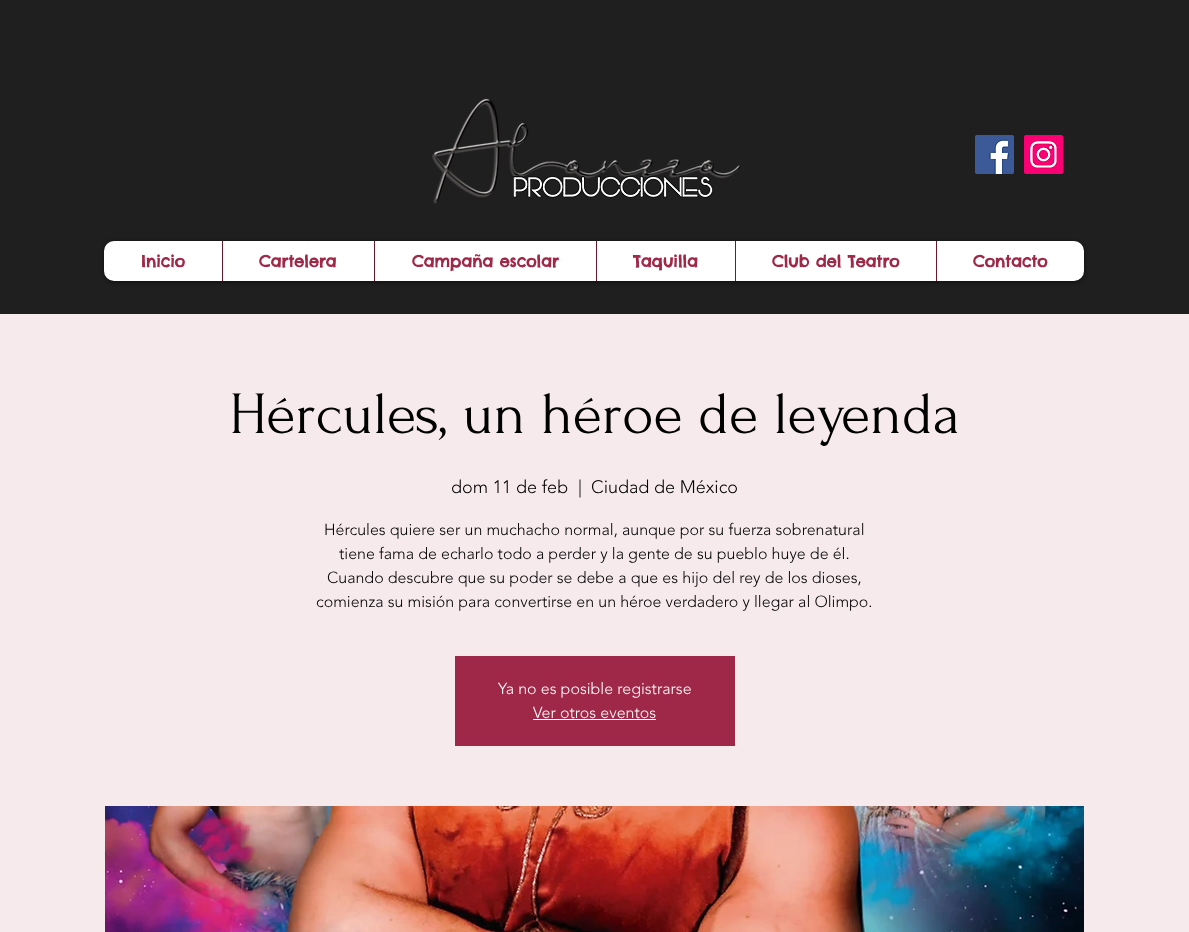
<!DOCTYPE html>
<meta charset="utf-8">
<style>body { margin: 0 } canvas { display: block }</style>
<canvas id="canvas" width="1189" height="932"></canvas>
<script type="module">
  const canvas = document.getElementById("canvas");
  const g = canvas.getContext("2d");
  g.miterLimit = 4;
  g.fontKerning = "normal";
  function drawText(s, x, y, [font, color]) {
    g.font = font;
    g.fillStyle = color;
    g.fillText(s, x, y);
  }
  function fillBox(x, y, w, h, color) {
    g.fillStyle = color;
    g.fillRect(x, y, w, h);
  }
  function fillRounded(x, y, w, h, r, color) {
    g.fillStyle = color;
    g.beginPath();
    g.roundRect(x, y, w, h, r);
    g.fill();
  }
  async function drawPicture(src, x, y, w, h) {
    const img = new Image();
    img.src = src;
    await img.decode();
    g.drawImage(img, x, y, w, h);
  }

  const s1 = ["bold 16px Chelsea Market", "#9F2747"];
  const s2 = ["60px Forum", "#000000"];
  const s3 = ["300 18px 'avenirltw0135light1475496'", "#000000"];
  const s4 = ["300 16px 'avenirltw0135light1475496'", "#000000"];
  const s5 = ["300 16px 'avenirltw0135light1475496'", "#FFFFFF"];

  fillBox(0, 0, 1189, 932, "#1F1F1F");
  await drawPicture("pic1.png", 432, 98, 309, 106);
  await drawPicture("pic2.png", 975, 135, 39, 39);
  await drawPicture("pic3.png", 1024, 135, 39, 39);
  g.fillStyle = "rgba(0, 0, 0, 0.6)";
  g.filter = "blur(2px)";
  g.beginPath();
  g.roundRect(104, 242, 980, 40, 10);
  g.fill();
  g.filter = "none";
  fillRounded(104, 241, 980, 40, 10, "#FFFFFF");
  drawText("Inicio", 141, 267, s1);
  fillBox(222, 241, 1, 40, "#6A1A2F");
  drawText("Cartelera", 259, 267, s1);
  fillBox(374, 241, 1, 40, "#6A1A2F");
  drawText("Campaña escolar", 412, 267, s1);
  fillBox(596, 241, 1, 40, "#6A1A2F");
  drawText("Taquilla", 633, 267, s1);
  fillBox(735, 241, 1, 40, "#6A1A2F");
  drawText("Club del Teatro", 772, 267, s1);
  fillBox(936, 241, 1, 40, "#6A1A2F");
  drawText("Contacto", 973, 267, s1);
  fillBox(0, 314, 1189, 618, "#F6EAED");
  drawText("Hércules, un héroe de leyenda", 229, 433, s2);
  drawText("dom 11 de feb", 451, 493, s3);
  drawText("|", 578, 493, s3);
  drawText("Ciudad de México", 591, 493, s3);
  drawText("Hércules quiere ser un muchacho normal, aunque por su fuerza sobrenatural", 324, 535, s4);
  drawText("tiene fama de echarlo todo a perder y la gente de su pueblo huye de él.", 339, 559, s4);
  drawText("Cuando descubre que su poder se debe a que es hijo del rey de los dioses,", 327, 583, s4);
  drawText("comienza su misión para convertirse en un héroe verdadero y llegar al Olimpo.", 316, 607, s4);
  fillBox(455, 656, 280, 90, "#9F2747");
  drawText("Ya no es posible registrarse", 498, 694, s5);
  drawText("Ver otros eventos", 533, 718, s5);
  fillBox(533, 719, 123, 1, "#FFFFFF");
  await drawPicture("pic4.png", 105, 806, 979, 126);
</script>
